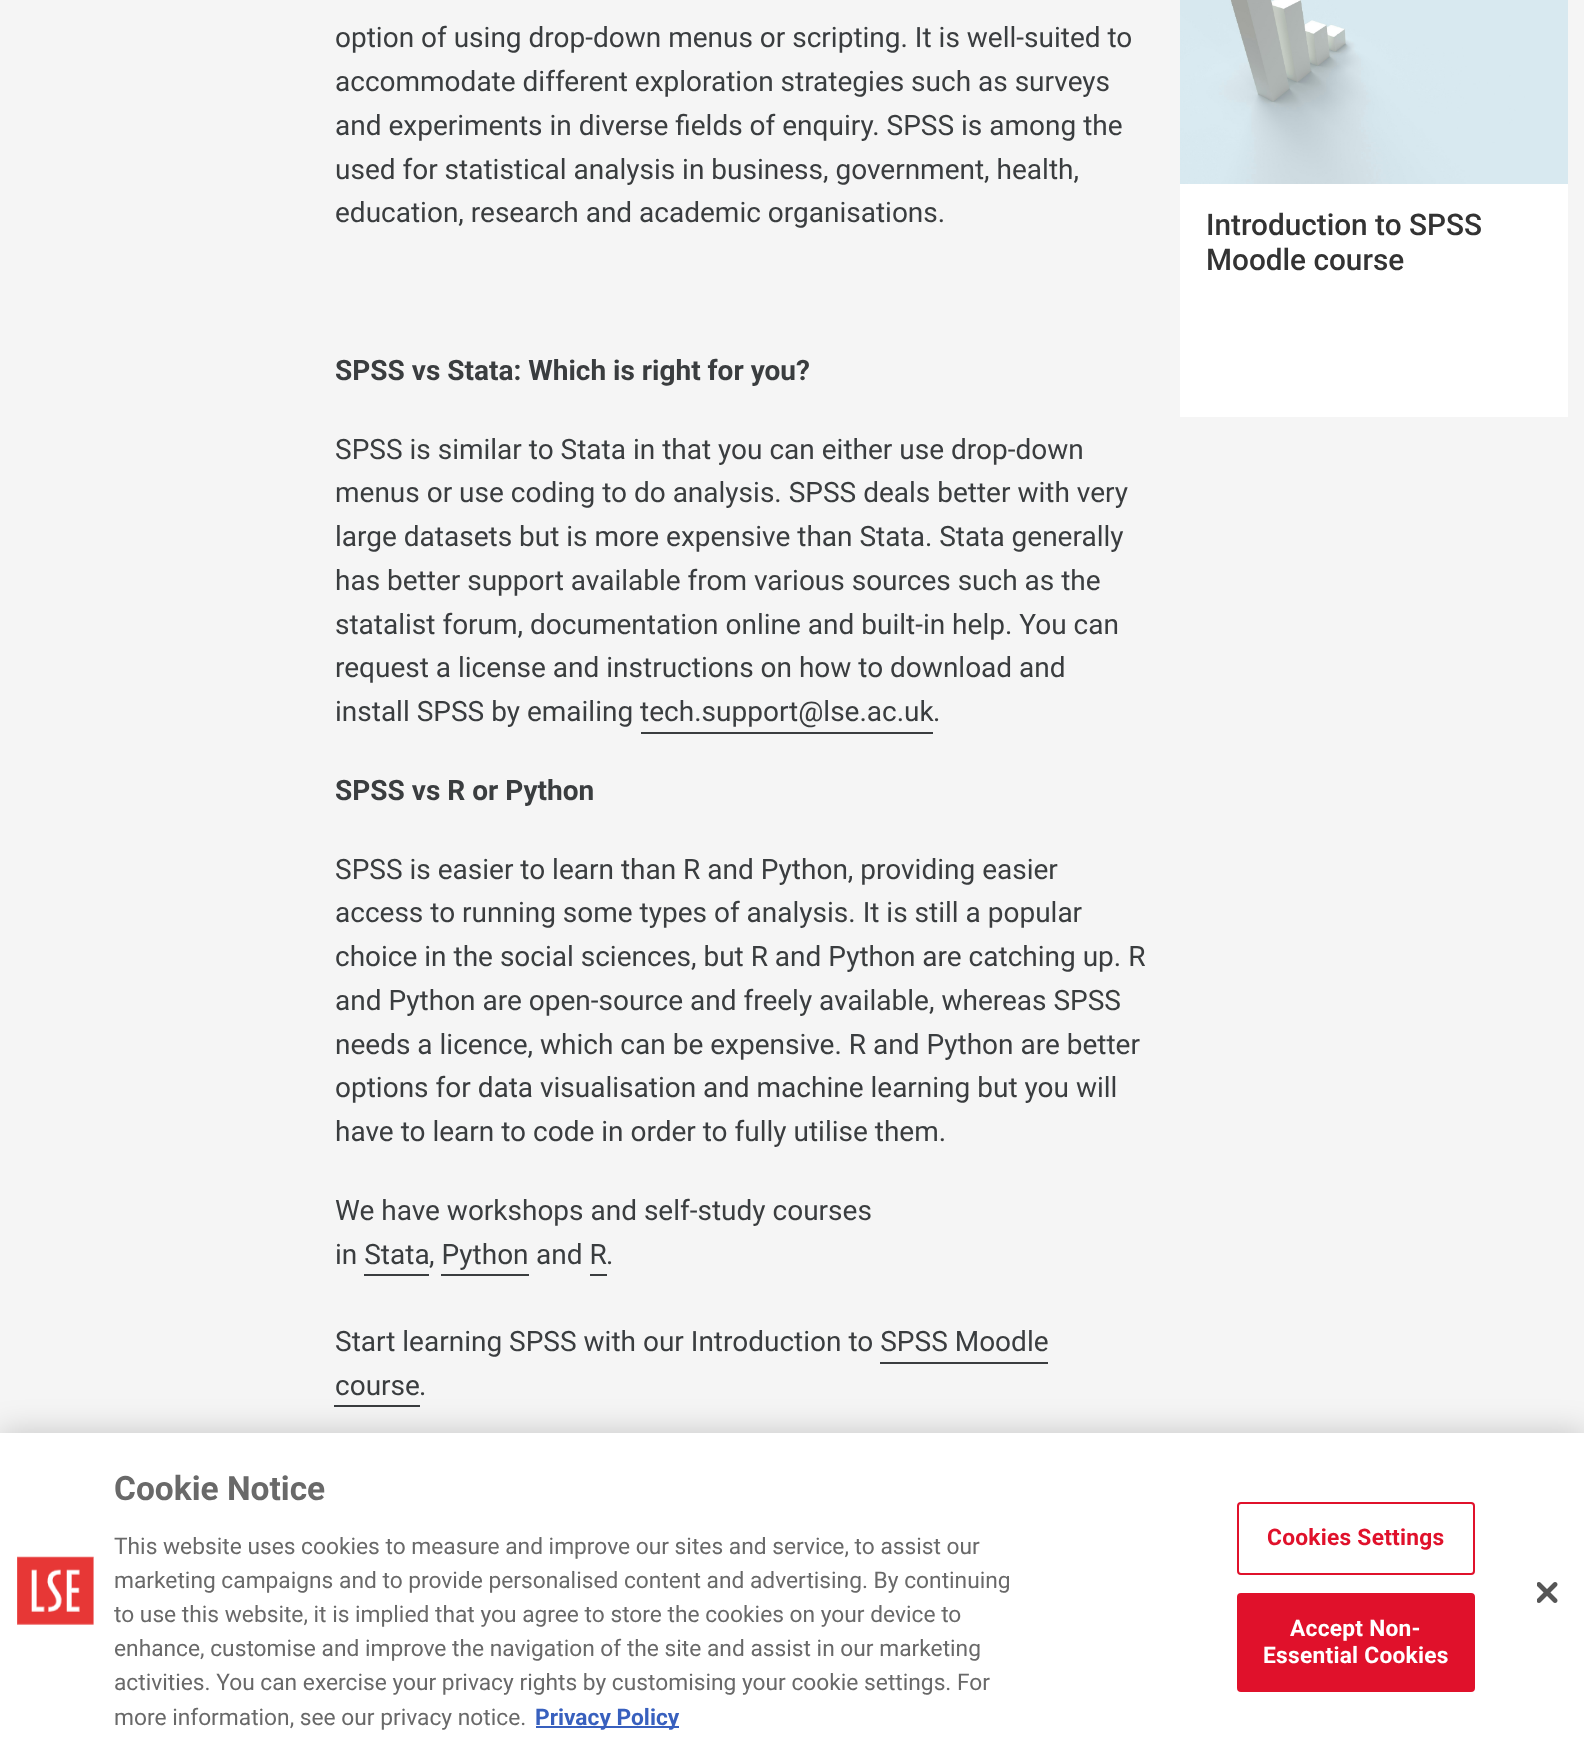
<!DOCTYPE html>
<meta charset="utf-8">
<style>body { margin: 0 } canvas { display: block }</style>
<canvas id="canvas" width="1584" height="1751"></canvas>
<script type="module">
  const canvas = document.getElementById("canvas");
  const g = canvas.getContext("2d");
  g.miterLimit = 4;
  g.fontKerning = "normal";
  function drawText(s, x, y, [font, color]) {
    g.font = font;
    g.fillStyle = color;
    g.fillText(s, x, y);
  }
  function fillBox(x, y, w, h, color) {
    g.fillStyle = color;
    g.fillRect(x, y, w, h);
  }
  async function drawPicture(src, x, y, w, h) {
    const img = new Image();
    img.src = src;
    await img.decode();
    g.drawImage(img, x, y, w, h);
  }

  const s1 = ["28px Roboto", "#3A3D3F"];
  const s2 = ["bold 28px Roboto", "#3A3D3F"];
  const s3 = ["500 29.75px Roboto", "#333333"];
  const s4 = ["bold 33.5px Roboto", "#696969"];
  const s5 = ["22.75px Roboto", "#696969"];
  const s6 = ["bold 22.75px Roboto", "#3860BE"];
  const s7 = ["bold 22.75px Roboto", "#E0112B"];
  const s8 = ["bold 22.75px Roboto", "#FFFFFF"];

  fillBox(0, 0, 1584, 1751, "#F5F5F5");
  drawText("option of using drop-down menus or scripting. It is well-suited to", 335, 47, s1);
  drawText("accommodate different exploration strategies such as surveys", 335, 91, s1);
  drawText("and experiments in diverse fields of enquiry. SPSS is among the", 335, 135, s1);
  drawText("used for statistical analysis in business, government, health,", 335, 179, s1);
  drawText("education, research and academic organisations.", 335, 222, s1);
  drawText("SPSS vs Stata: Which is right for you?", 335, 380, s2);
  drawText("SPSS is similar to Stata in that you can either use drop-down", 335, 459, s1);
  drawText("menus or use coding to do analysis. SPSS deals better with very", 335, 502, s1);
  drawText("large datasets but is more expensive than Stata. Stata generally", 335, 546, s1);
  drawText("has better support available from various sources such as the", 335, 590, s1);
  drawText("statalist forum, documentation online and built-in help. You can", 335, 634, s1);
  drawText("request a license and instructions on how to download and", 335, 677, s1);
  drawText("install SPSS by emailing tech.support@lse.ac.uk", 335, 721, s1);
  drawText(".", 933, 721, s1);
  fillBox(641, 732, 292, 2, "#3A3D3F");
  drawText("SPSS vs R or Python", 335, 800, s2);
  drawText("SPSS is easier to learn than R and Python, providing easier", 335, 879, s1);
  drawText("access to running some types of analysis. It is still a popular", 335, 922, s1);
  drawText("choice in the social sciences, but R and Python are catching up. R", 335, 966, s1);
  drawText("and Python are open-source and freely available, whereas SPSS", 335, 1010, s1);
  drawText("needs a licence, which can be expensive. R and Python are better", 335, 1054, s1);
  drawText("options for data visualisation and machine learning but you will", 335, 1097, s1);
  drawText("have to learn to code in order to fully utilise them.", 335, 1141, s1);
  drawText("We have workshops and self-study courses", 335, 1220, s1);
  drawText("in Stata", 335, 1264, s1);
  drawText(", Python", 429, 1264, s1);
  drawText("and R", 536, 1264, s1);
  drawText(".", 606, 1264, s1);
  fillBox(364, 1274, 65, 2, "#3A3D3F");
  fillBox(441, 1274, 88, 2, "#3A3D3F");
  fillBox(590, 1274, 17, 2, "#3A3D3F");
  drawText("Start learning SPSS with our Introduction to SPSS Moodle", 335, 1351, s1);
  drawText("course", 335, 1395, s1);
  fillBox(880, 1362, 168, 2, "#3A3D3F");
  fillBox(334, 1405, 86, 2, "#3A3D3F");
  drawText(".", 419, 1395, s1);
  fillBox(1180, 184, 388, 233, "#FFFFFF");
  await drawPicture("pic1.png", 1180, 0, 388, 184);
  drawText("Introduction to SPSS", 1206, 235, s3);
  drawText("Moodle course", 1206, 270, s3);
  g.fillStyle = "rgba(0, 0, 0, 0.2)";
  g.filter = "blur(16px)";
  g.beginPath();
  g.rect(0, 1433, 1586, 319);
  g.fill();
  g.filter = "none";
  fillBox(0, 1433, 1584, 318, "#FFFFFF");
  await drawPicture("pic2.png", 17, 1556, 77, 69);
  drawText("Cookie Notice", 114, 1500, s4);
  drawText("This website uses cookies to measure and improve our sites and service, to assist our", 114, 1554, s5);
  drawText("marketing campaigns and to provide personalised content and advertising. By continuing", 114, 1588, s5);
  drawText("to use this website, it is implied that you agree to store the cookies on your device to", 114, 1622, s5);
  drawText("enhance, customise and improve the navigation of the site and assist in our marketing", 114, 1656, s5);
  drawText("activities. You can exercise your privacy rights by customising your cookie settings. For", 114, 1690, s5);
  drawText("more information, see our privacy notice.", 114, 1725, s5);
  fillBox(536, 1726, 143, 2, "#3860BE");
  drawText("Privacy Policy", 535, 1725, s6);
  g.beginPath();
  g.roundRect(1238, 1503, 236, 71, 3);
  g.strokeStyle = "#E0112B";
  g.lineWidth = 2;
  g.stroke();
  g.letterSpacing = "0.25px";
  drawText("Cookies Settings", 1267, 1545, s7);
  g.beginPath();
  g.roundRect(1238, 1594, 236, 97, 3);
  g.fill();
  g.stroke();
  drawText("Accept Non-", 1290, 1636, s8);
  drawText("Essential Cookies", 1263, 1663, s8);
  await drawPicture("pic3.png", 1537, 1582, 21, 21);
</script>
